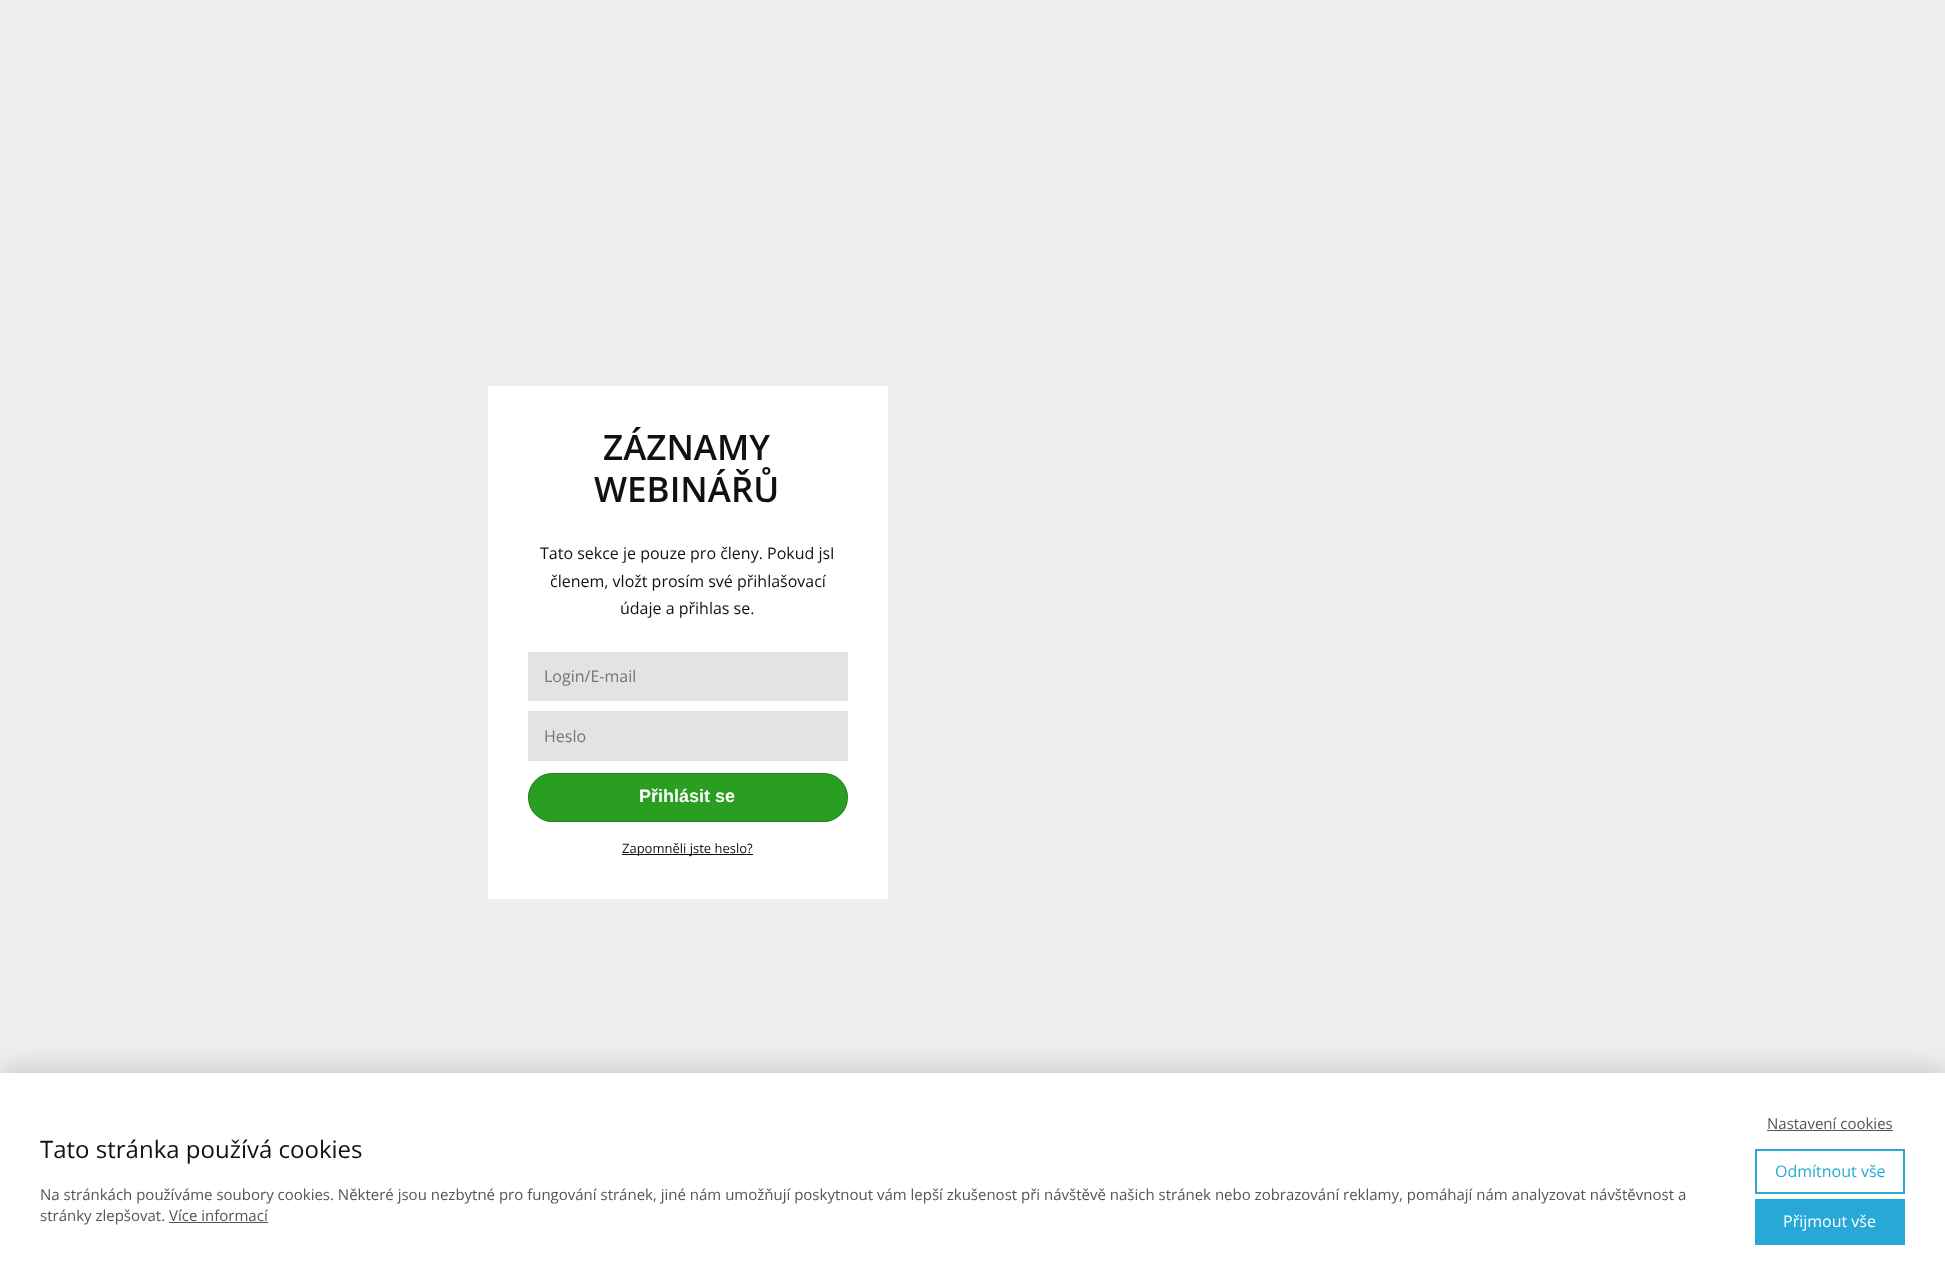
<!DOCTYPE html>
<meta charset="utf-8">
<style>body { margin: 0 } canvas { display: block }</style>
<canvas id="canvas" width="1945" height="1285"></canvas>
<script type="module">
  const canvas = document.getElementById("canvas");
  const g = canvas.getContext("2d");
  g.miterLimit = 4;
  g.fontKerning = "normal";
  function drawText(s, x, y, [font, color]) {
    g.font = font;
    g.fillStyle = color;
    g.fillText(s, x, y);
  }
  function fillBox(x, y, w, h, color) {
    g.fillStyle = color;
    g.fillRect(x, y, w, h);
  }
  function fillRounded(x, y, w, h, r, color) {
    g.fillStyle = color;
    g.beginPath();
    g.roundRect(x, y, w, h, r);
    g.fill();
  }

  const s1 = ["600 35px Open Sans", "#111111"];
  const s2 = ["16px Open Sans", "#111111"];
  const s3 = ["16px Open Sans", "#757575"];
  const s4 = ["bold 18px Liberation Sans", "#FFFFFF"];
  const s5 = ["13px Open Sans", "#111111"];
  const s6 = ["24px Open Sans", "#111111"];
  const s7 = ["15px Open Sans", "#555555"];
  const s8 = ["16px Open Sans", "#27A8D7"];
  const s9 = ["16px Open Sans", "#FFFFFF"];

  fillBox(0, 0, 1945, 1285, "#EEEEEE");
  fillBox(488, 386, 400, 513, "#FFFFFF");
  drawText("ZÁZNAMY", 603, 460, s1);
  drawText("WEBINÁŘŮ", 594, 502, s1);
  drawText("Tato sekce je pouze pro členy. Pokud jsI", 540, 559, s2);
  drawText("členem, vložt prosím své přihlašovací", 550, 587, s2);
  drawText("údaje a přihlas se.", 620, 614, s2);
  fillBox(528, 652, 320, 49, "#E3E3E3");
  drawText("Login/E-mail", 544, 682, s3);
  fillBox(528, 711, 320, 50, "#E3E3E3");
  drawText("Heslo", 544, 742, s3);
  fillRounded(528, 773, 320, 49, 24.5, "#2A9E21");
  g.beginPath();
  g.roundRect(528.5, 773.5, 319, 48, 24);
  g.strokeStyle = "rgba(0, 0, 0, 0.2)";
  g.stroke();
  drawText("Přihlásit se", 639, 802, s4);
  fillBox(622, 854, 131, 1, "#111111");
  drawText("Zapomněli jste heslo?", 622, 853, s5);
  g.fillStyle = "rgba(0, 0, 0, 0.2)";
  g.filter = "blur(15px)";
  g.beginPath();
  g.rect(0, 1073, 1945, 212);
  g.fill();
  g.filter = "none";
  fillBox(0, 1073, 1945, 212, "#FFFFFF");
  drawText("Tato stránka používá cookies", 40, 1158, s6);
  drawText("Na stránkách používáme soubory cookies. Některé jsou nezbytné pro fungování stránek, jiné nám umožňují poskytnout vám lepší zkušenost při návštěvě našich stránek nebo zobrazování reklamy, pomáhají nám analyzovat návštěvnost a", 40, 1200, s7);
  drawText("stránky zlepšovat. Více informací", 40, 1221, s7);
  fillBox(169, 1222, 99, 1, "#555555");
  drawText("Nastavení cookies", 1767, 1129, s7);
  fillBox(1767, 1130, 126, 1, "#555555");
  g.strokeStyle = "#27A8D7";
  g.lineWidth = 2;
  g.strokeRect(1756, 1150, 148, 43);
  drawText("Odmítnout vše", 1775, 1177, s8);
  fillBox(1755, 1199, 150, 46, "#27A8D7");
  drawText("Přijmout vše", 1783, 1227, s9);
</script>
